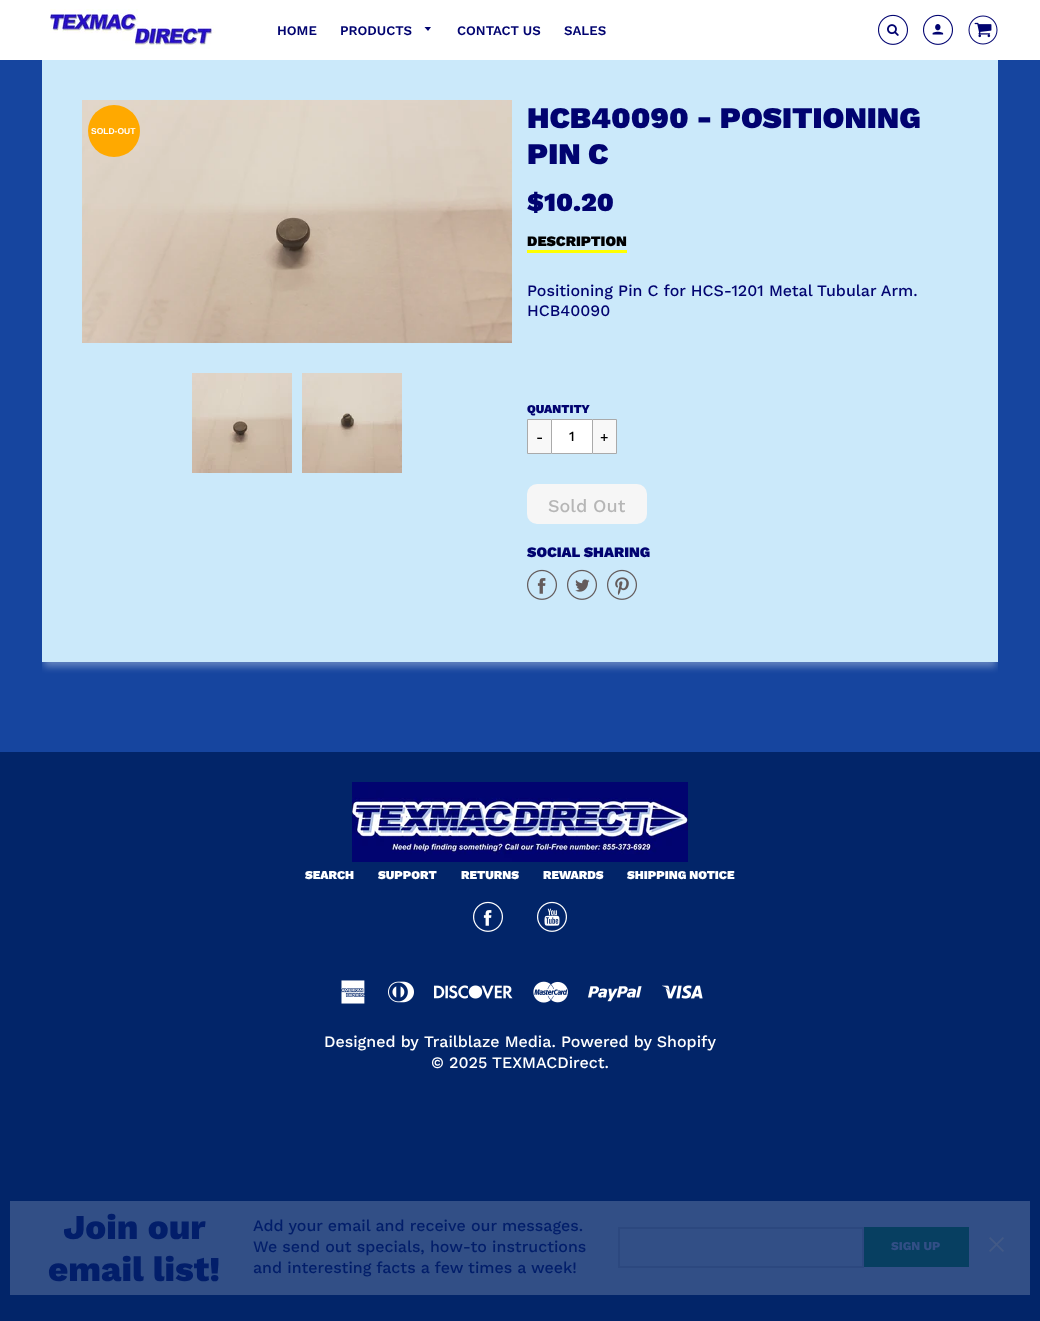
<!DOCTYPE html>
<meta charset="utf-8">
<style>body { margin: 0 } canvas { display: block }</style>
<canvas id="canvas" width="1040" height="1321"></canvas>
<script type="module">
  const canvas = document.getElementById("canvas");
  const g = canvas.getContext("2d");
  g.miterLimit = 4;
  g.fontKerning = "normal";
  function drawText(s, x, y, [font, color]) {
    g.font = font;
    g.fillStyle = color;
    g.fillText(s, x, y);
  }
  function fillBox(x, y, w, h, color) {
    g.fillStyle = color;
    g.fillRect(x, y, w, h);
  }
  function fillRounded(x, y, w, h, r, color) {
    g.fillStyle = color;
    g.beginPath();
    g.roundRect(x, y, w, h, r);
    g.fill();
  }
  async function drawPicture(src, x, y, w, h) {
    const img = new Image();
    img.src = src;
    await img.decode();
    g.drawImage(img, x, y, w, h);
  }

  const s1 = ["600 13.25px Work Sans", "#010370"];
  const s2 = ["bold 8.5px Liberation Sans", "#FFFFFF"];
  const s3 = ["900 30px Work Sans", "#010370"];
  const s4 = ["900 26px Work Sans", "#010370"];
  const s5 = ["900 14.5px Work Sans", "#000000"];
  const s6 = ["500 16px Work Sans", "#010370"];
  const s7 = ["900 12px Work Sans", "#010370"];
  const s8 = ["500 14px Work Sans", "#000000"];
  const s9 = ["500 18px Work Sans", "#B6B6B6"];
  const s10 = ["900 14.5px Work Sans", "#010370"];
  const s11 = ["900 12px Work Sans", "#FFFFFF"];
  const s12 = ["500 16px Work Sans", "#FFFFFF"];
  const s13 = ["800 35px Work Sans", "#021E6A"];
  const s14 = ["500 16px Work Sans", "#021E6A"];
  const s15 = ["800 12px Work Sans", "#324F86"];

  fillBox(0, 0, 1040, 1321, "#022569");
  fillBox(0, 60, 1040, 692, "#16459F");
  g.save();
  g.beginPath();
  g.rect(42, 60, 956, 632);
  g.clip();
  g.fillStyle = "rgba(255, 255, 255, 0.32)";
  g.filter = "blur(3.5px)";
  g.beginPath();
  g.rect(44, 69, 952, 598);
  g.fill();
  g.filter = "none";
  g.restore();
  fillBox(0, 0, 1040, 60, "#FFFFFF");
  await drawPicture("pic1.png", 50, 9, 166, 40);
  drawText("HOME", 277, 35, s1);
  drawText("PRODUCTS", 340, 35, s1);
  g.beginPath();
  g.moveTo(424.5, 27);
  g.lineTo(428, 31);
  g.lineTo(431, 27);
  g.closePath();
  g.fill();
  drawText("CONTACT US", 457, 35, s1);
  drawText("SALES", 564, 35, s1);
  await drawPicture("pic2.png", 878, 14, 30, 31);
  await drawPicture("pic3.png", 923, 14, 30, 31);
  await drawPicture("pic4.png", 968, 15, 30, 30);
  fillBox(42, 60, 956, 602, "#CBE9FA");
  await drawPicture("pic5.png", 82, 100, 430, 243);
  g.fillStyle = "#FFA900";
  g.beginPath();
  g.arc(114, 131, 26, 0, Math.PI * 2);
  g.fill();
  drawText("SOLD-OUT", 91, 134, s2);
  await drawPicture("pic6.png", 192, 373, 100, 100);
  await drawPicture("pic7.png", 302, 373, 100, 100);
  drawText("HCB40090 - POSITIONING", 527, 128, s3);
  drawText("PIN C", 527, 164, s3);
  drawText("$10.20", 527, 211, s4);
  fillBox(527, 250, 100, 3, "#FFFF00");
  drawText("DESCRIPTION", 527, 246, s5);
  drawText("Positioning Pin C for HCS-1201 Metal Tubular Arm.", 527, 296, s6);
  drawText("HCB40090", 527, 316, s6);
  drawText("QUANTITY", 527, 413, s7);
  g.fillStyle = "#F8F8F8";
  g.beginPath();
  g.rect(527.5, 419.5, 24, 34);
  g.fill();
  g.strokeStyle = "#AAAAAA";
  g.stroke();
  drawText("-", 536, 442, s8);
  fillBox(552, 420, 40, 33, "#FFFFFF");
  fillBox(552, 419, 40, 1, "#AAAAAA");
  fillBox(552, 453, 40, 1, "#AAAAAA");
  drawText("1", 569, 441, s8);
  g.fillStyle = "#F8F8F8";
  g.beginPath();
  g.rect(592.5, 419.5, 24, 34);
  g.fill();
  g.stroke();
  drawText("+", 600, 442, s8);
  fillRounded(527, 484, 120, 40, 10, "#F6F6F6");
  drawText("Sold Out", 548, 512, s9);
  drawText("SOCIAL SHARING", 527, 557, s10);
  await drawPicture("pic8.png", 527, 569, 30, 31);
  await drawPicture("pic9.png", 567, 569, 30, 31);
  await drawPicture("pic10.png", 607, 569, 30, 31);
  await drawPicture("pic11.png", 352, 782, 336, 80);
  drawText("SEARCH", 305, 879, s11);
  drawText("SUPPORT", 378, 879, s11);
  drawText("RETURNS", 461, 879, s11);
  drawText("REWARDS", 543, 879, s11);
  drawText("SHIPPING NOTICE", 627, 879, s11);
  await drawPicture("pic12.png", 473, 901, 30, 31);
  await drawPicture("pic13.png", 537, 901, 30, 31);
  await drawPicture("pic14.png", 341, 980, 24, 24);
  await drawPicture("pic15.png", 388, 981, 26, 22);
  await drawPicture("pic16.png", 434, 985, 79, 14);
  await drawPicture("pic17.png", 533, 981, 35, 22);
  await drawPicture("pic18.png", 588, 986, 54, 16);
  await drawPicture("pic19.png", 662, 985, 41, 14);
  drawText("Designed by", 324, 1047, s12);
  drawText("Trailblaze Media. Powered by Shopify", 424, 1047, s12);
  drawText("© 2025 TEXMACDirect.", 431, 1068, s12);
  fillBox(10, 1201, 1020, 94, "#324F86");
  drawText("Join our", 63, 1239, s13);
  drawText("email list!", 48, 1281, s13);
  drawText("Add your email and receive our messages.", 253, 1231, s14);
  drawText("We send out specials, how-to instructions", 253, 1252, s14);
  drawText("and interesting facts a few times a week!", 253, 1273, s14);
  g.strokeStyle = "#2C487F";
  g.lineWidth = 2;
  g.strokeRect(619, 1228, 244, 39);
  fillBox(864, 1227, 105, 40, "#073F61");
  drawText("SIGN UP", 891, 1250, s15);
  await drawPicture("pic20.png", 989, 1237, 15, 15);
</script>
